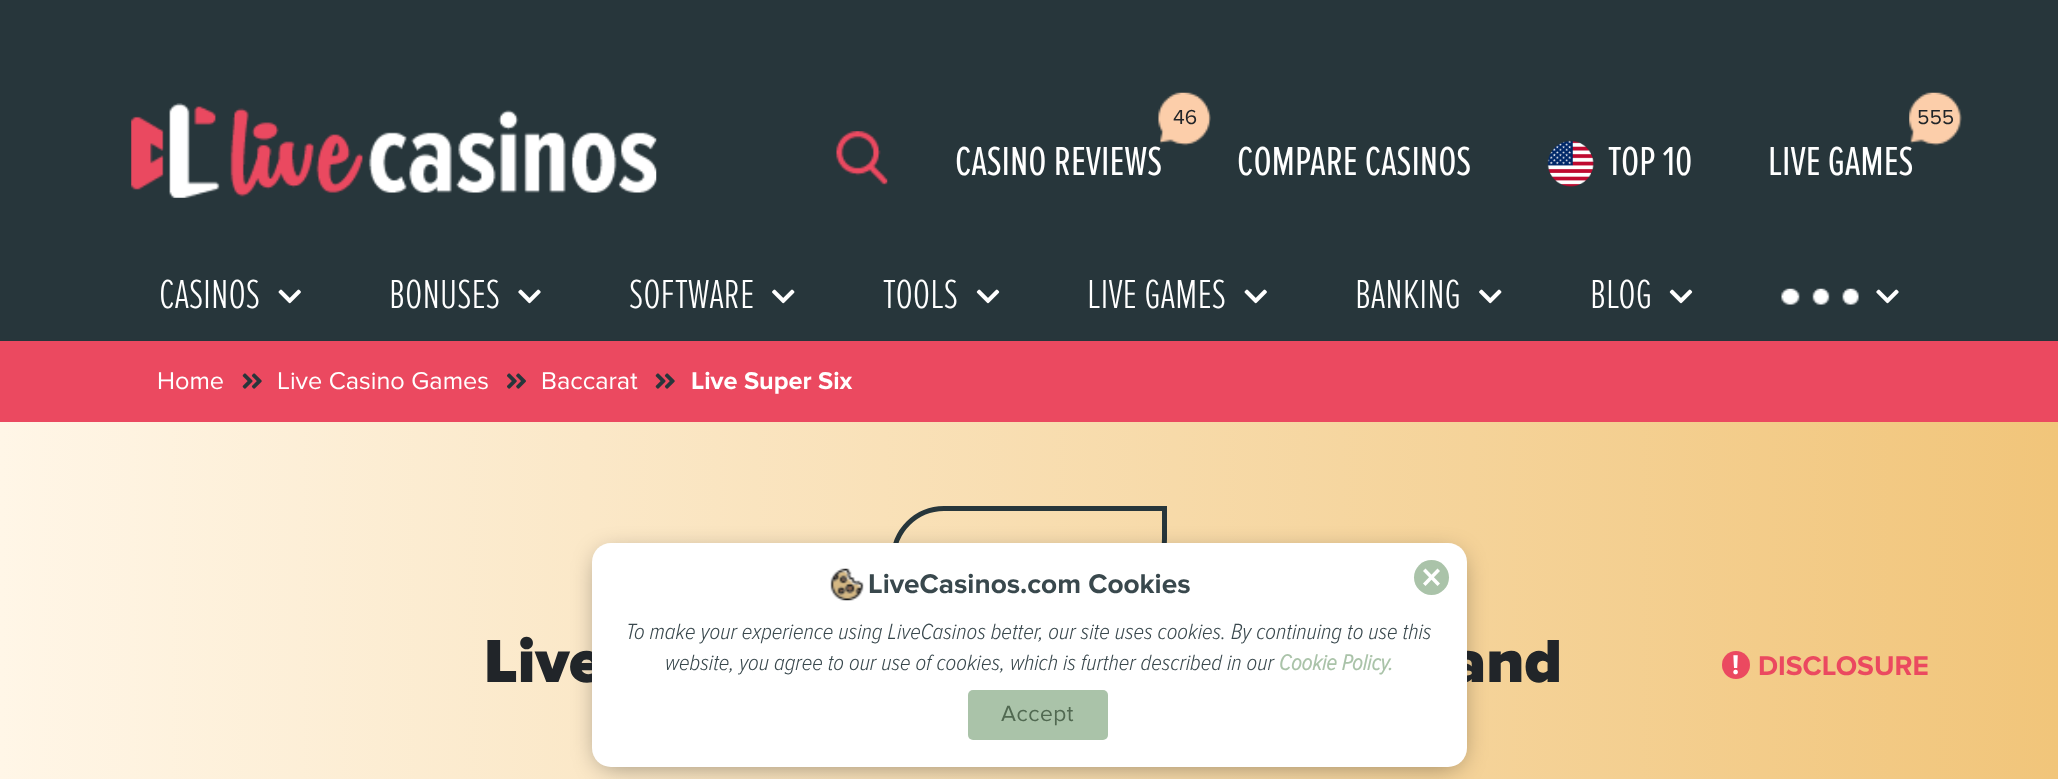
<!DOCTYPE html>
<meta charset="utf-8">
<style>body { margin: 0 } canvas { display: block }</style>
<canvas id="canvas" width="2058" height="779"></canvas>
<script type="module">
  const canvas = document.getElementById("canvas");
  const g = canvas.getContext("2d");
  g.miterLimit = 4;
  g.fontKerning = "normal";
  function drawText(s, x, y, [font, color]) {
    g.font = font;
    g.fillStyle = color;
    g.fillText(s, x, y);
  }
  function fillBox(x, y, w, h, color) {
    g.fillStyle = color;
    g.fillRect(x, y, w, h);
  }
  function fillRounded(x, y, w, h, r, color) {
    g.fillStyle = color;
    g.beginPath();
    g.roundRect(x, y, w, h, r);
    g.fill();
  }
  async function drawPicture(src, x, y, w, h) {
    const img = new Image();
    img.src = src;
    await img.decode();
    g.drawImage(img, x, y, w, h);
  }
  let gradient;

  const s1 = ["21px Proxima Nova", "#212529"];
  const s2 = ["42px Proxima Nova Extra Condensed", "#FFFFFF"];
  const s3 = ["300 42px Proxima Nova Extra Condensed", "#FFFFFF"];
  const s4 = ["25.25px Proxima Nova", "#FFFFFF"];
  const s5 = ["bold 25.25px Proxima Nova", "#FFFFFF"];
  const s6 = ["900 63px Proxima Nova", "#212529"];
  const s7 = ["bold 28px Proxima Nova", "#39484D"];
  const s8 = ["italic 300 22.75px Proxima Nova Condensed", "#39484D"];
  const s9 = ["italic bold 22.75px Proxima Nova Condensed", "#AAC3A9"];
  const s10 = ["22.75px Proxima Nova", "#516951"];
  const s11 = ["bold 28px Proxima Nova", "#FFFFFF"];
  const s12 = ["bold 28px Proxima Nova", "#EB4960"];

  fillBox(0, 0, 2058, 779, "#27363B");
  await drawPicture("pic1.png", 131, 103, 526, 95);
  await drawPicture("pic2.png", 836, 131, 52, 54);
  await drawPicture("pic3.png", 1158, 92, 53, 54);
  drawText("46", 1173, 124, s1);
  drawText("CASINO REVIEWS", 955, 175, s2);
  drawText("COMPARE CASINOS", 1237, 175, s2);
  await drawPicture("pic4.png", 1547, 140, 47, 47);
  drawText("TOP 10", 1608, 175, s2);
  await drawPicture("pic5.png", 1909, 92, 53, 54);
  drawText("555", 1917, 124, s1);
  drawText("LIVE GAMES", 1768, 175, s2);
  drawText("CASINOS", 159, 308, s3);
  await drawPicture("pic6.png", 278, 289, 23, 15);
  drawText("BONUSES", 389, 308, s3);
  await drawPicture("pic7.png", 518, 289, 23, 15);
  drawText("SOFTWARE", 629, 308, s3);
  await drawPicture("pic8.png", 772, 289, 23, 15);
  drawText("TOOLS", 883, 308, s3);
  await drawPicture("pic9.png", 976, 289, 24, 15);
  drawText("LIVE GAMES", 1087, 308, s3);
  await drawPicture("pic6.png", 1244, 289, 23, 15);
  drawText("BANKING", 1355, 308, s3);
  await drawPicture("pic8.png", 1479, 289, 23, 15);
  drawText("BLOG", 1590, 308, s3);
  await drawPicture("pic9.png", 1669, 289, 24, 15);
  await drawPicture("pic10.png", 1781, 288, 78, 17);
  await drawPicture("pic7.png", 1876, 289, 23, 15);
  fillBox(0, 341, 2058, 81, "#EB4960");
  drawText("Home", 157, 389, s4);
  await drawPicture("pic11.png", 242, 373, 20, 16);
  drawText("Live Casino Games", 277, 389, s4);
  await drawPicture("pic12.png", 507, 373, 19, 16);
  drawText("Baccarat", 541, 389, s4);
  await drawPicture("pic11.png", 655, 373, 20, 16);
  drawText("Live Super Six", 691, 389, s5);
  gradient = g.createLinearGradient(0, 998, 2058, 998);
  gradient.addColorStop(0, "#FFF6E7");
  gradient.addColorStop(1, "#F1C57A");
  g.fillStyle = gradient;
  g.fillRect(0, 422, 2058, 357);
  g.beginPath();
  g.roundRect(893.5, 508.5, 271, 81, [50.5, 0, 50.5, 0]);
  g.strokeStyle = "#27363B";
  g.lineWidth = 5;
  g.stroke();
  g.fillStyle = "rgba(0, 0, 0, 0.44)";
  g.filter = "blur(13px)";
  g.beginPath();
  g.roundRect(599, 555, 861, 210, 12);
  g.fill();
  g.filter = "none";
  drawText("Live", 484, 682, s6);
  drawText("and", 1451, 682, s6);
  fillRounded(592, 543, 875, 224, 19, "#FFFFFF");
  g.fillStyle = "#AAC3A9";
  g.beginPath();
  g.arc(1431.5, 577.5, 17.5, 0, Math.PI * 2);
  g.fill();
  g.fillStyle = "#FFFFFF";
  g.beginPath();
  g.moveTo(1437.5, 568.5);
  g.lineTo(1440, 571);
  g.lineTo(1425.5, 586);
  g.lineTo(1423, 583.5);
  g.closePath();
  g.fill();
  g.beginPath();
  g.moveTo(1423, 571);
  g.lineTo(1425.5, 568.5);
  g.lineTo(1440, 583.5);
  g.lineTo(1437.5, 586);
  g.closePath();
  g.fill();
  await drawPicture("pic13.png", 830, 568, 34, 33);
  drawText("LiveCasinos.com Cookies", 868, 593, s7);
  drawText("To make your experience using LiveCasinos better, our site uses cookies. By continuing to use this", 626, 639, s8);
  drawText("website, you agree to our use of cookies, which is further described in our", 665, 670, s8);
  drawText("Cookie Policy.", 1279, 670, s9);
  fillRounded(968, 690, 140, 50, 5, "#AAC3A9");
  g.letterSpacing = "0.5px";
  drawText("Accept", 1001, 721, s10);
  g.fillStyle = "#EB4960";
  g.beginPath();
  g.arc(1736, 665, 14, 0, Math.PI * 2);
  g.fill();
  g.letterSpacing = "0px";
  drawText("!", 1732, 674, s11);
  drawText("DISCLOSURE", 1758, 675, s12);
</script>
